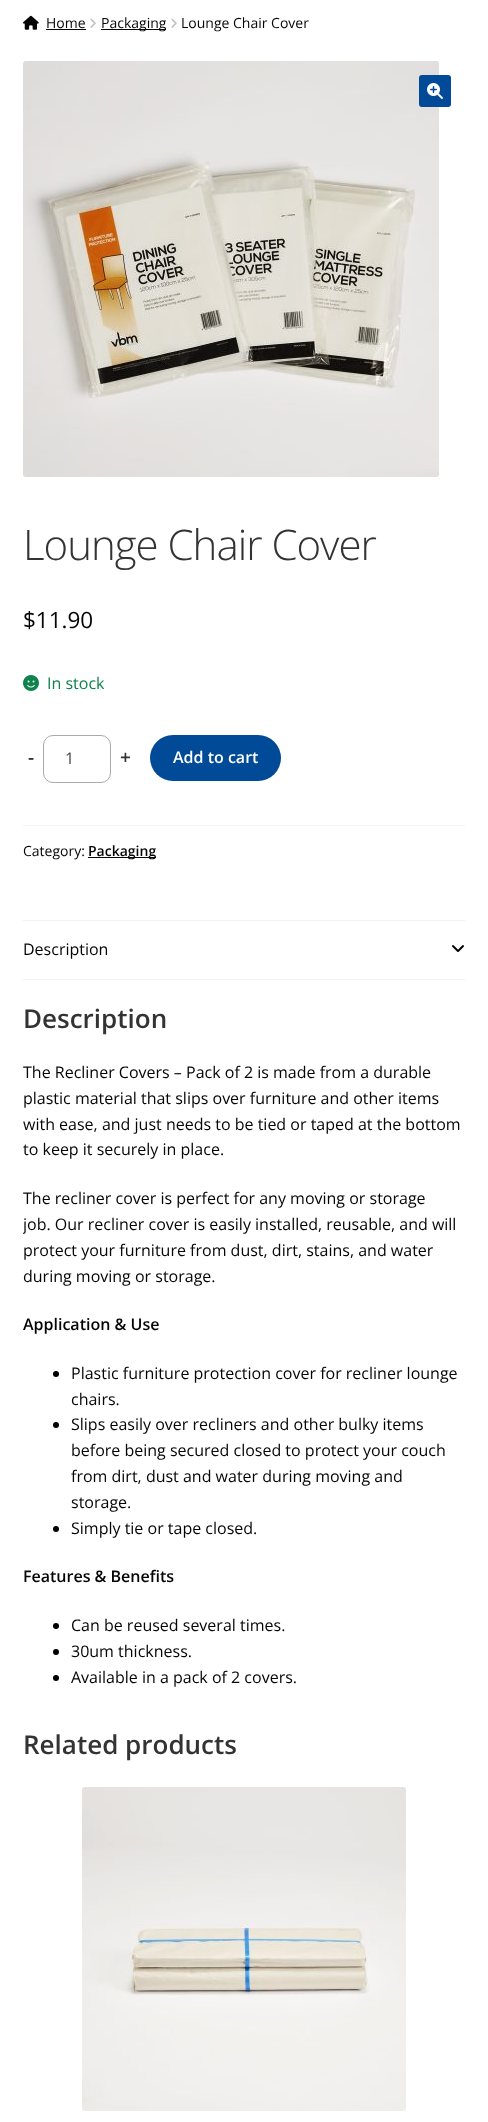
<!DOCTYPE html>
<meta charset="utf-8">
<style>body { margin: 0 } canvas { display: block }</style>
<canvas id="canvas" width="488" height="2122"></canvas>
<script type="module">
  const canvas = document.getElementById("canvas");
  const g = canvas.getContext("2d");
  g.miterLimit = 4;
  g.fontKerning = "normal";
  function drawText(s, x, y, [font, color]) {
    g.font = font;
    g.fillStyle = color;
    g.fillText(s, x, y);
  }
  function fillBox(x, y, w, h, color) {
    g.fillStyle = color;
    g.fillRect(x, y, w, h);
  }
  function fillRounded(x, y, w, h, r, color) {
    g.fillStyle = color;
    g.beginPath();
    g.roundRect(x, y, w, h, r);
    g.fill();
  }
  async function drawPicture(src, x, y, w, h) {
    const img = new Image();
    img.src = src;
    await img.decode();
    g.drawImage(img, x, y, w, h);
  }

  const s1 = ["14px Open Sans", "#050505"];
  const s2 = ["300 42px Open Sans", "#333333"];
  const s3 = ["22.5px Open Sans", "#050505"];
  const s4 = ["16px Open Sans", "#0F834D"];
  const s5 = ["600 19px Open Sans", "#333333"];
  const s6 = ["16px Open Sans", "#43454B"];
  const s7 = ["600 16px Open Sans", "#FFFFFF"];
  const s8 = ["600 14px Open Sans", "#050505"];
  const s9 = ["16px Open Sans", "#050505"];
  const s10 = ["600 26px Open Sans", "#333333"];
  const s11 = ["600 16px Open Sans", "#050505"];

  fillBox(0, 0, 488, 2122, "#FFFFFF");
  await drawPicture("pic1.png", 23, 15, 16, 15);
  drawText("Home", 46, 28, s1);
  fillBox(46, 29, 40, 1, "#050505");
  await drawPicture("pic2.png", 90, 18, 6, 10);
  fillBox(101, 29, 65, 1, "#050505");
  drawText("Packaging", 101, 28, s1);
  await drawPicture("pic2.png", 171, 18, 6, 10);
  drawText("Lounge Chair Cover", 181, 28, s1);
  await drawPicture("pic3.png", 23, 61, 416, 416);
  fillRounded(419, 75, 32, 32, 3, "#004A98");
  await drawPicture("pic4.png", 427, 83, 16, 16);
  g.letterSpacing = "-1px";
  drawText("Lounge Chair Cover", 23, 560, s2);
  g.letterSpacing = "0px";
  drawText("$11.90", 23, 628, s3);
  await drawPicture("pic5.png", 23, 675, 16, 16);
  drawText("In stock", 47, 689, s4);
  drawText("-", 28, 764, s5);
  g.beginPath();
  g.roundRect(43.5, 735.5, 67, 47, 9.5);
  g.strokeStyle = "#AAAAAA";
  g.stroke();
  drawText("1", 65, 764, s6);
  drawText("+", 120, 764, s5);
  fillRounded(150, 735, 131, 46, 23, "#004A98");
  drawText("Add to cart", 173, 763, s7);
  fillBox(23, 825, 442, 1, "#F2F2F2");
  drawText("Category:", 23, 856, s1);
  fillBox(88, 857, 68, 1, "#050505");
  drawText("Packaging", 88, 856, s8);
  fillBox(23, 920, 442, 1, "#F2F2F2");
  fillBox(23, 979, 442, 1, "#F2F2F2");
  drawText("Description", 23, 955, s9);
  await drawPicture("pic6.png", 452, 945, 12, 7);
  drawText("Description", 23, 1028, s10);
  drawText("The Recliner Covers – Pack of 2 is made from a durable", 23, 1078, s9);
  drawText("plastic material that slips over furniture and other items", 23, 1104, s9);
  drawText("with ease, and just needs to be tied or taped at the bottom", 23, 1130, s9);
  drawText("to keep it securely in place.", 23, 1155, s9);
  drawText("The recliner cover is perfect for any moving or storage", 23, 1204, s9);
  g.save();
  g.beginPath();
  g.rect(23, 904, 442, 825);
  g.clip();
  drawText("job. Our recliner cover is easily installed, reusable, and will", 23, 1230, s9);
  g.restore();
  drawText("protect your furniture from dust, dirt, stains, and water", 23, 1256, s9);
  drawText("during moving or storage.", 23, 1282, s9);
  drawText("Application & Use", 23, 1330, s11);
  g.fillStyle = "#000000";
  g.beginPath();
  g.arc(56, 1374, 3, 0, Math.PI * 2);
  g.fill();
  drawText("Plastic furniture protection cover for recliner lounge", 71, 1379, s9);
  drawText("chairs.", 71, 1405, s9);
  g.fillStyle = "#000000";
  g.beginPath();
  g.arc(56, 1425, 3, 0, Math.PI * 2);
  g.fill();
  drawText("Slips easily over recliners and other bulky items", 71, 1430, s9);
  drawText("before being secured closed to protect your couch", 71, 1456, s9);
  drawText("from dirt, dust and water during moving and", 71, 1482, s9);
  drawText("storage.", 71, 1508, s9);
  g.fillStyle = "#000000";
  g.beginPath();
  g.arc(56, 1529, 3, 0, Math.PI * 2);
  g.fill();
  drawText("Simply tie or tape closed.", 71, 1534, s9);
  drawText("Features & Benefits", 23, 1582, s11);
  g.fillStyle = "#000000";
  g.beginPath();
  g.arc(56, 1626, 3, 0, Math.PI * 2);
  g.fill();
  drawText("Can be reused several times.", 71, 1631, s9);
  g.fillStyle = "#000000";
  g.beginPath();
  g.arc(56, 1652, 3, 0, Math.PI * 2);
  g.fill();
  drawText("30um thickness.", 71, 1657, s9);
  g.fillStyle = "#000000";
  g.beginPath();
  g.arc(56, 1678, 3, 0, Math.PI * 2);
  g.fill();
  drawText("Available in a pack of 2 covers.", 71, 1683, s9);
  drawText("Related products", 23, 1754, s10);
  await drawPicture("pic7.png", 82, 1787, 324, 324);
</script>
